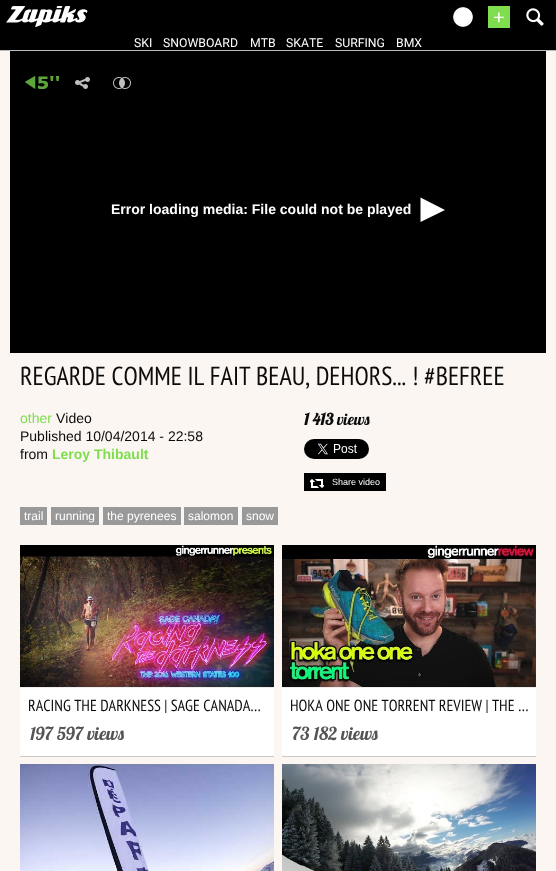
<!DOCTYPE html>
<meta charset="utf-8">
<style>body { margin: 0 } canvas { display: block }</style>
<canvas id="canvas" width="556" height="871"></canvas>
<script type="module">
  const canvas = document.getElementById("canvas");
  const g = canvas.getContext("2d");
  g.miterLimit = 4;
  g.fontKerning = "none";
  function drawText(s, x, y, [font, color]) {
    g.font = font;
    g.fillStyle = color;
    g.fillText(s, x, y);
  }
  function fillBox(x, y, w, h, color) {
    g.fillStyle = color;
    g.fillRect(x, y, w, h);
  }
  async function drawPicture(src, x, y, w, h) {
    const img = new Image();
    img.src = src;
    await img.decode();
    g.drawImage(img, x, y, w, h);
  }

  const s1 = ["20px Liberation Sans", "#FFFFFF"];
  const s2 = ["12.25px Roboto", "#FFFFFF"];
  const s3 = ["bold 14px Liberation Sans", "#FFFFFF"];
  const s4 = ["26px PT Sans Narrow", "#0C0C0C"];
  const s5 = ["14px Liberation Sans", "#7EDE4E"];
  const s6 = ["14px Liberation Sans", "#0C0C0C"];
  const s7 = ["bold 14px Liberation Sans", "#7EDE4E"];
  const s8 = ["bold 16px Lobster", "#0C0C0C"];
  const s9 = ["16px Lobster", "#0C0C0C"];
  const s10 = ["9px Liberation Sans", "#FFFFFF"];
  const s11 = ["12px Liberation Sans", "#FFFFFF"];
  const s12 = ["16px PT Sans Narrow", "#0C0C0C"];
  const s13 = ["18px Lobster", "#555555"];

  fillBox(0, 0, 556, 871, "#FBF6F2");
  fillBox(0, 0, 556, 50, "#000000");
  fillBox(0, 50, 556, 1, "#BBBBBB");
  await drawPicture("pic1.png", 6, 6, 82, 21);
  await drawPicture("pic2.png", 453, 7, 20, 20);
  fillBox(488, 6, 22, 22, "#7EDE4E");
  drawText("+", 493, 24, s1);
  await drawPicture("pic3.png", 526, 8, 18, 18);
  drawText("SKI", 134, 47, s2);
  drawText("SNOWBOARD", 163, 47, s2);
  drawText("MTB", 250, 47, s2);
  drawText("SKATE", 286, 47, s2);
  drawText("SURFING", 335, 47, s2);
  drawText("BMX", 396, 47, s2);
  fillBox(10, 51, 536, 302, "#000000");
  await drawPicture("pic4.png", 25, 76, 34, 13);
  await drawPicture("pic5.png", 75, 77, 15, 12);
  await drawPicture("pic6.png", 113, 77, 18, 12);
  drawText("Error loading media: File could not be played", 111, 214, s3);
  g.beginPath();
  g.moveTo(445, 210);
  g.lineTo(420.5, 222);
  g.lineTo(420.5, 197.5);
  g.closePath();
  g.fill();
  drawText("REGARDE COMME IL FAIT BEAU, DEHORS...", 20, 385, s4);
  drawText("! #BEFREE", 412, 385, s4);
  drawText("other", 20, 423, s5);
  drawText("Video", 56, 423, s6);
  drawText("Published 10/04/2014 - 22:58", 20, 441, s6);
  drawText("from", 20, 459, s6);
  drawText("Leroy Thibault", 52, 459, s7);
  drawText("1 413", 304, 425, s8);
  drawText("views", 337, 425, s9);
  await drawPicture("pic7.png", 304, 439, 65, 20);
  fillBox(304, 473, 82, 18, "#000000");
  await drawPicture("pic8.png", 310, 479, 14, 9);
  drawText("Share video", 332, 485, s10);
  fillBox(20, 507, 27, 18, "#999999");
  drawText("trail", 24, 520, s11);
  fillBox(51, 507, 48, 18, "#999999");
  drawText("running", 55, 520, s11);
  fillBox(103, 507, 78, 18, "#999999");
  drawText("the pyrenees", 107, 520, s11);
  fillBox(184, 507, 54, 18, "#999999");
  drawText("salomon", 188, 520, s11);
  fillBox(242, 507, 36, 18, "#999999");
  drawText("snow", 246, 520, s11);
  g.fillStyle = "rgba(0, 0, 0, 0.18)";
  g.filter = "blur(0.5px)";
  g.beginPath();
  g.rect(20, 546, 254, 211);
  g.fill();
  g.filter = "none";
  await drawPicture("pic9.png", 20, 545, 254, 142);
  fillBox(20, 688, 254, 68, "#FFFFFF");
  fillBox(20, 687, 254, 1, "#EEEEEE");
  drawText("RACING THE DARKNESS | SAGE CANADA…", 28, 711, s12);
  drawText("197 597 views", 30, 740, s13);
  g.fillStyle = "rgba(0, 0, 0, 0.18)";
  g.filter = "blur(0.5px)";
  g.beginPath();
  g.rect(282, 546, 254, 211);
  g.fill();
  g.filter = "none";
  await drawPicture("pic10.png", 282, 545, 254, 142);
  fillBox(282, 688, 254, 68, "#FFFFFF");
  fillBox(282, 687, 254, 1, "#EEEEEE");
  drawText("HOKA ONE ONE TORRENT REVIEW | THE …", 290, 711, s12);
  drawText("73 182 views", 292, 740, s13);
  await drawPicture("pic11.png", 20, 764, 254, 107);
  await drawPicture("pic12.png", 282, 764, 254, 107);
</script>
